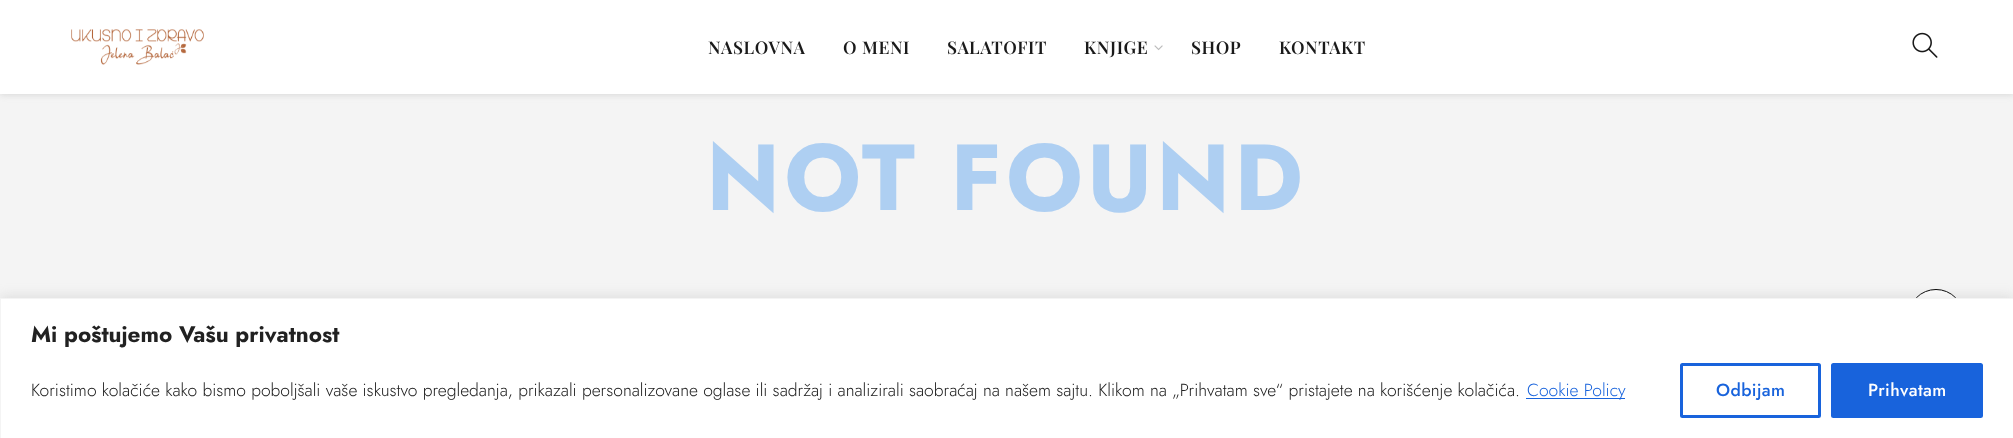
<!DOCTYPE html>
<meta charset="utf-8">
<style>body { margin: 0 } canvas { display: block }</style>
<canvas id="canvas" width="2013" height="438"></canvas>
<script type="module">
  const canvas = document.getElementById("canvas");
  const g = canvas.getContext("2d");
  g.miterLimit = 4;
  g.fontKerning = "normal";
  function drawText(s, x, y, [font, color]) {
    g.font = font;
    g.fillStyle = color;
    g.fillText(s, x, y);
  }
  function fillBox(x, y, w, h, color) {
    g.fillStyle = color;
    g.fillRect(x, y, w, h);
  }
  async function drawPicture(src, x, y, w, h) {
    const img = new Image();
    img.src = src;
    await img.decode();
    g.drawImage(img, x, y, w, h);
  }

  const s1 = ["600 17.5px Playfair Display", "#1A1A1A"];
  const s2 = ["bold 93.75px Jost", "#AECFF2"];
  const s3 = ["bold 22.5px Jost", "#212121"];
  const s4 = ["300 17.5px Jost", "#212121"];
  const s5 = ["300 17.5px Jost", "#1863DC"];
  const s6 = ["500 17.5px Jost", "#1863DC"];
  const s7 = ["500 17.5px Jost", "#FFFFFF"];

  fillBox(0, 0, 2013, 438, "#F4F4F4");
  g.fillStyle = "rgba(190, 190, 190, 0.5)";
  g.filter = "blur(3px)";
  g.beginPath();
  g.rect(0, 1, 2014, 94);
  g.fill();
  g.filter = "none";
  fillBox(0, 0, 2013, 94, "#FFFFFF");
  await drawPicture("pic1.png", 71, 29, 133, 36);
  g.letterSpacing = "0.6px";
  drawText("NASLOVNA", 708, 54, s1);
  drawText("O MENI", 843, 54, s1);
  drawText("SALATOFIT", 947, 54, s1);
  drawText("KNJIGE", 1084, 54, s1);
  await drawPicture("pic2.png", 1154, 45, 9, 6);
  drawText("SHOP", 1191, 54, s1);
  drawText("KONTAKT", 1279, 54, s1);
  await drawPicture("pic3.png", 1912, 32, 26, 26);
  g.letterSpacing = "3.75px";
  drawText("NOT FOUND", 706, 210, s2);
  g.fillStyle = "#FFFFFF";
  g.beginPath();
  g.arc(1936, 317, 27.5, 0, Math.PI * 2);
  g.fill();
  g.strokeStyle = "#000000";
  g.stroke();
  g.fillStyle = "rgba(172, 171, 171, 0.3)";
  g.filter = "blur(6px)";
  g.beginPath();
  g.rect(0, 296, 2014, 142);
  g.fill();
  g.filter = "none";
  g.fillStyle = "#FFFFFF";
  g.beginPath();
  g.rect(0.5, 298.5, 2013, 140);
  g.fill();
  g.strokeStyle = "#F4F4F4";
  g.stroke();
  g.letterSpacing = "0px";
  drawText("Mi poštujemo Vašu privatnost", 31, 342, s3);
  drawText("Koristimo kolačiće kako bismo poboljšali vaše iskustvo pregledanja, prikazali personalizovane oglase ili sadržaj i analizirali saobraćaj na našem sajtu. Klikom na „Prihvatam sve“ pristajete na korišćenje kolačića.", 31, 396, s4);
  fillBox(1526, 398, 99, 1, "#1863DC");
  drawText("Cookie Policy", 1527, 396, s5);
  g.beginPath();
  g.roundRect(1681.5, 364.5, 138, 52, 1);
  g.strokeStyle = "#1863DC";
  g.lineWidth = 3;
  g.stroke();
  g.letterSpacing = "0.4px";
  drawText("Odbijam", 1716, 396, s6);
  g.beginPath();
  g.roundRect(1832.5, 364.5, 149, 52, 1);
  g.fill();
  g.stroke();
  drawText("Prihvatam", 1868, 396, s7);
</script>
